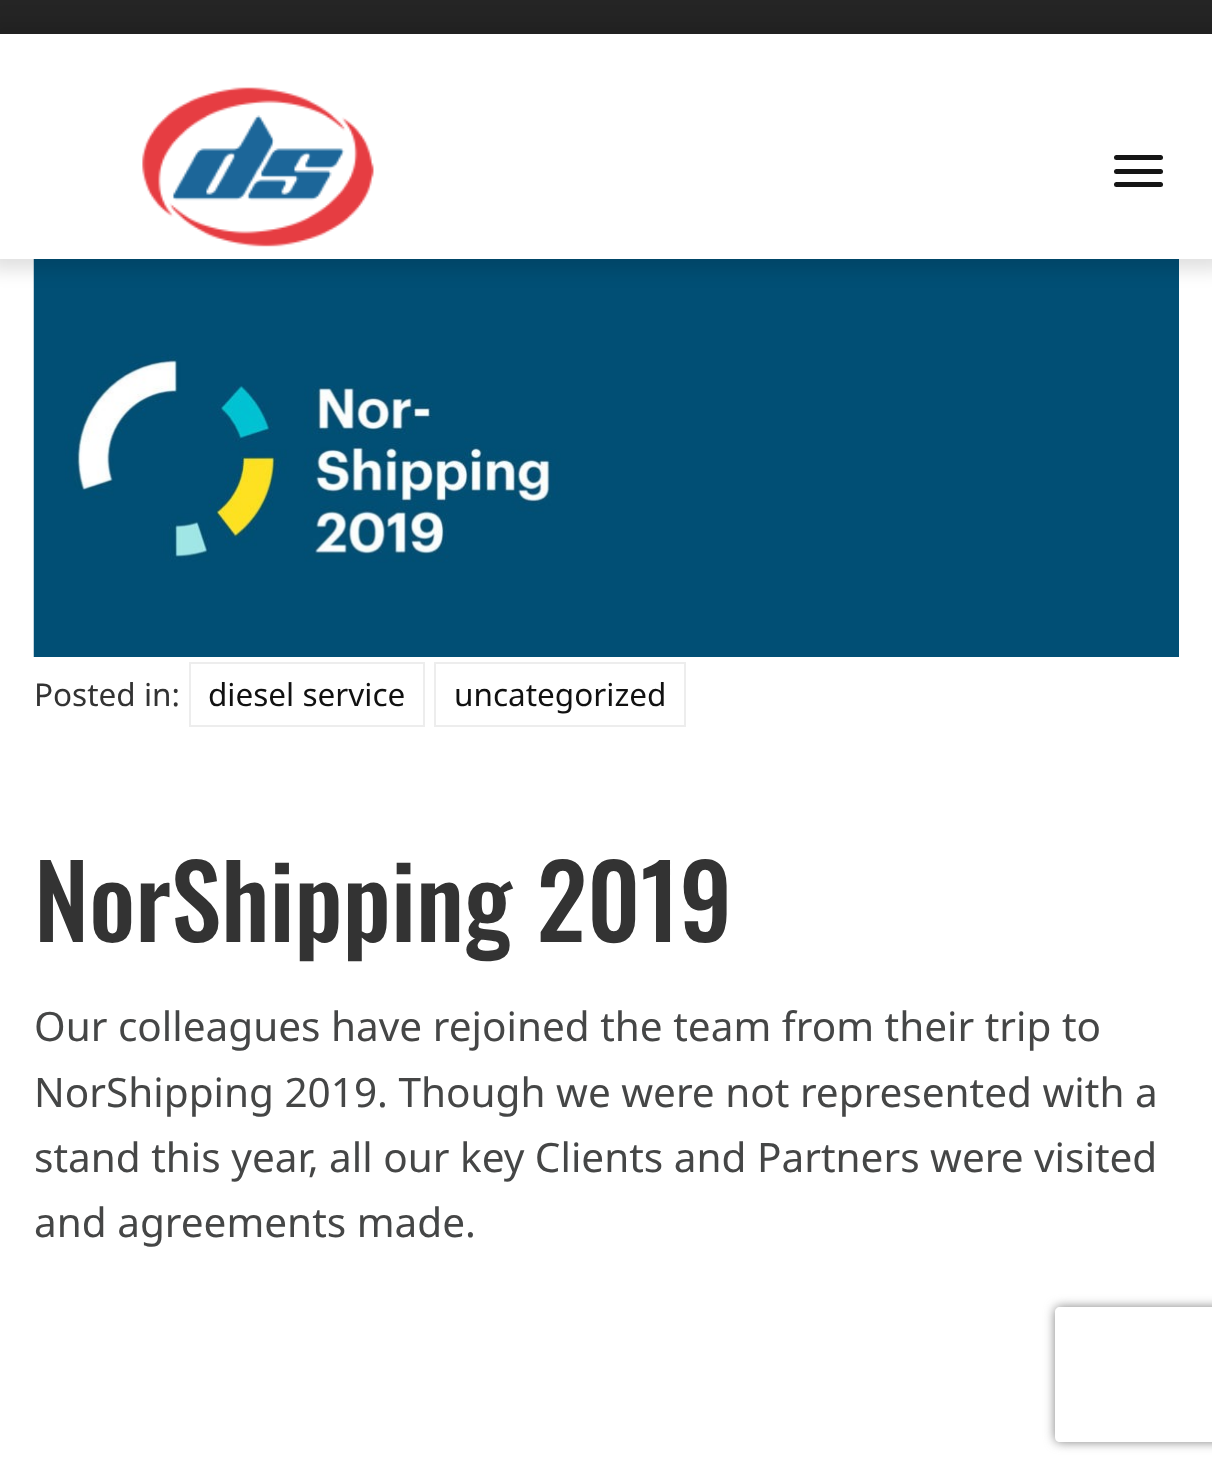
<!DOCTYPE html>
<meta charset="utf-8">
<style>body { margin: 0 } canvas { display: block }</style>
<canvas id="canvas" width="1212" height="1473"></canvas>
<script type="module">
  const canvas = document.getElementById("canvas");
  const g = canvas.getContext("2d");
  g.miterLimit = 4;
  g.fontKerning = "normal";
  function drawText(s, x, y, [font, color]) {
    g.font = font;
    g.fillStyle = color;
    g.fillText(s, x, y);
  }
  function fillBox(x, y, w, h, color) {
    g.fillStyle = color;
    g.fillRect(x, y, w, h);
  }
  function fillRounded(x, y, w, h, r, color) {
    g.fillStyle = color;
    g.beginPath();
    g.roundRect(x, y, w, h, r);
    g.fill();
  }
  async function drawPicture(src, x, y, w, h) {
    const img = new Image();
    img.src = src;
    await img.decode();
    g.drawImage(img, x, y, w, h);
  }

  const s1 = ["31.5px Noto Sans", "#333333"];
  const s2 = ["31.5px Noto Sans", "#111111"];
  const s3 = ["500 101.25px Oswald", "#333333"];
  const s4 = ["40.5px Noto Sans", "#454646"];

  fillBox(0, 0, 1212, 1473, "#FFFFFF");
  fillBox(0, 0, 1212, 34, "#252525");
  await drawPicture("pic2.png", 33, 259, 1146, 398);
  g.fillStyle = "rgba(0, 0, 0, 0.12)";
  g.filter = "blur(9px)";
  g.beginPath();
  g.rect(-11, 23, 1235, 247);
  g.fill();
  g.filter = "none";
  fillBox(0, 34, 1212, 225, "#FFFFFF");
  await drawPicture("pic1.png", 142, 87, 232, 160);
  fillRounded(1114, 155, 49, 5, 2.5, "#151515");
  fillRounded(1114, 169, 49, 5, 2.5, "#151515");
  fillRounded(1114, 182, 49, 5, 2.5, "#151515");
  drawText("Posted in:", 34, 706, s1);
  g.strokeStyle = "#EDEDED";
  g.lineWidth = 2;
  g.strokeRect(190, 663, 234, 63);
  drawText("diesel service", 208, 706, s2);
  g.strokeRect(435, 663, 250, 63);
  drawText("uncategorized", 454, 706, s2);
  drawText("NorShipping 2019", 34, 942, s3);
  drawText("Our colleagues have rejoined the team from their trip to", 34, 1041, s4);
  drawText("NorShipping 2019. Though we were not represented with a", 34, 1107, s4);
  drawText("stand this year, all our key Clients and Partners were visited", 34, 1172, s4);
  drawText("and agreements made.", 34, 1237, s4);
  g.save();
  g.beginPath();
  g.moveTo(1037, 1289);
  g.lineTo(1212, 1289);
  g.lineTo(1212, 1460);
  g.lineTo(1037, 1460);
  g.closePath();
  g.moveTo(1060, 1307);
  g.lineTo(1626, 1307);
  g.bezierCurveTo(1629, 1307, 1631, 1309, 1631, 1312);
  g.lineTo(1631, 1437);
  g.bezierCurveTo(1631, 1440, 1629, 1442, 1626, 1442);
  g.lineTo(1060, 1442);
  g.bezierCurveTo(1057, 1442, 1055, 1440, 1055, 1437);
  g.lineTo(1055, 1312);
  g.bezierCurveTo(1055, 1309, 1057, 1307, 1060, 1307);
  g.closePath();
  g.clip("evenodd");
  g.fillStyle = "#808080";
  g.filter = "blur(5.5px)";
  g.beginPath();
  g.roundRect(1055, 1307, 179, 135, 5);
  g.fill();
  g.filter = "none";
  g.restore();
</script>
